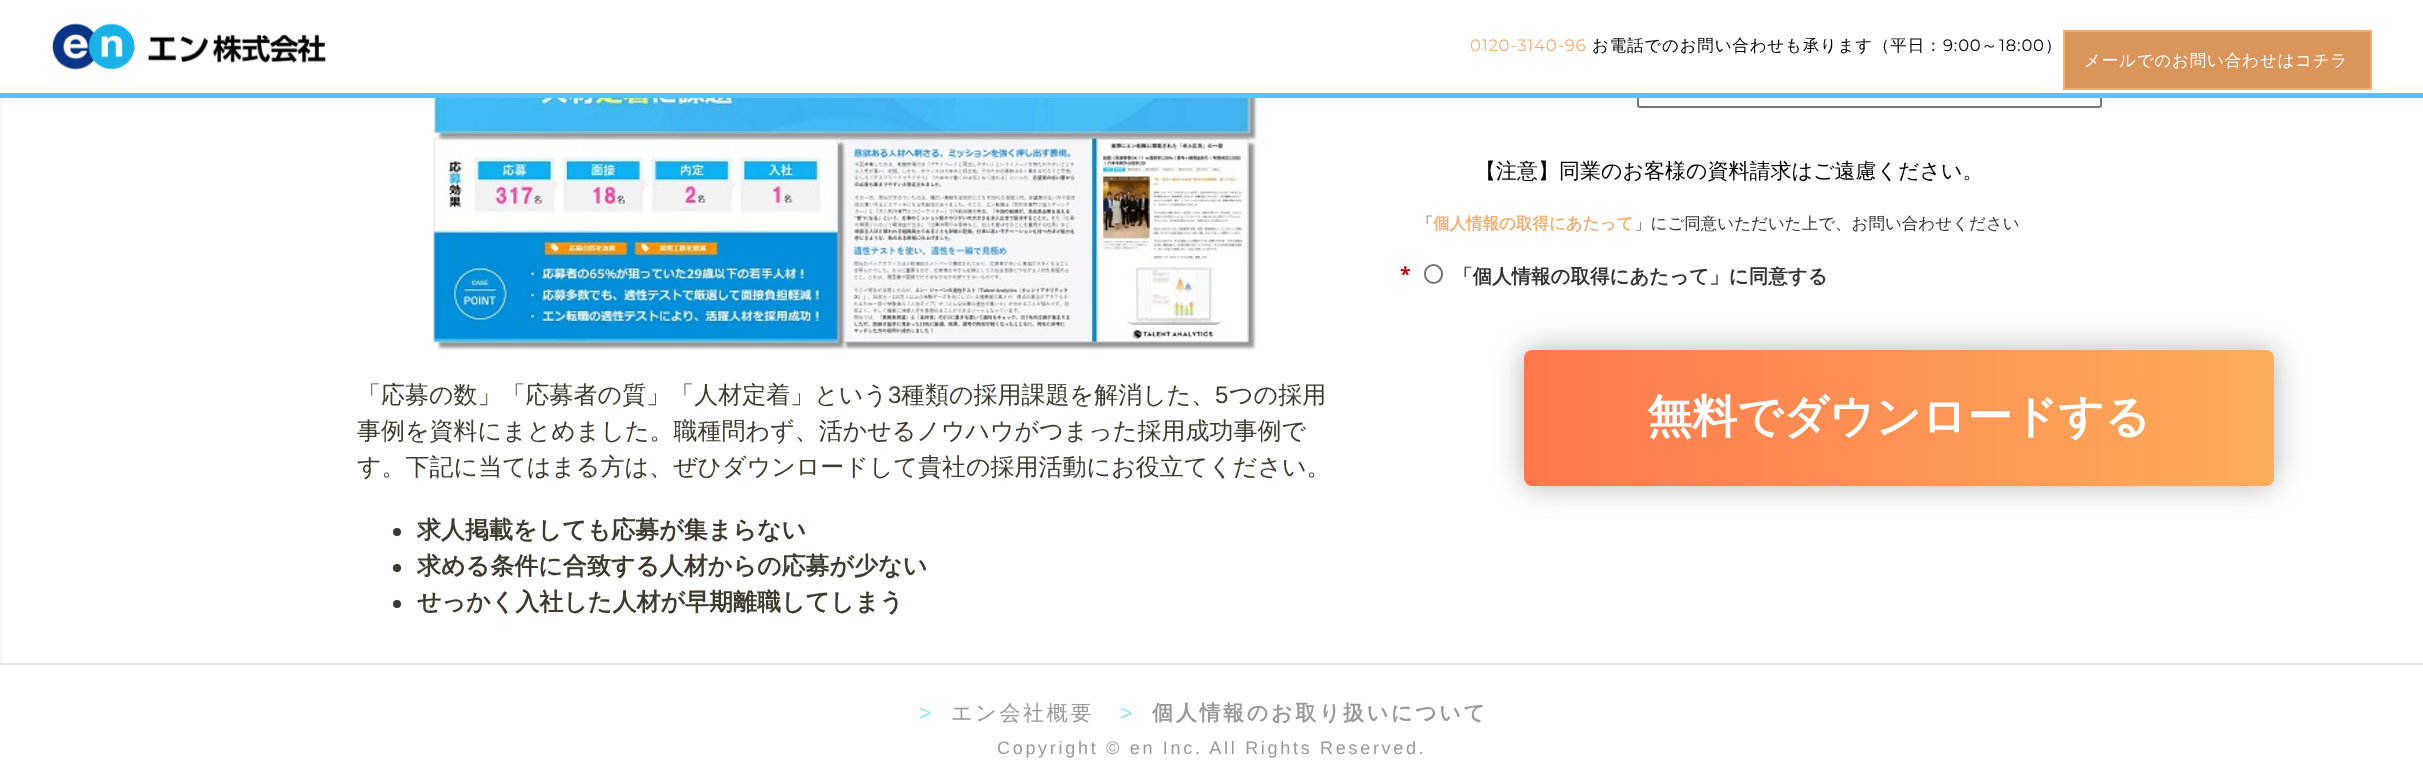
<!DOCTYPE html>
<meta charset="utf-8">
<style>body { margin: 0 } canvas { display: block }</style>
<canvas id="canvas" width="2423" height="777"></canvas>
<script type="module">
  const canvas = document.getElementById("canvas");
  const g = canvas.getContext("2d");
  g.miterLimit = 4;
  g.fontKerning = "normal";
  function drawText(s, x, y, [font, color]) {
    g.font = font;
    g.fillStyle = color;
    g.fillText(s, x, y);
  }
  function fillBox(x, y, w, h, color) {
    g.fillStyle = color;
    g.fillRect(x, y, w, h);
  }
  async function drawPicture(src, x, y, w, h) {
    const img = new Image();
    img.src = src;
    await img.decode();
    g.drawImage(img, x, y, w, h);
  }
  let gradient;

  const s1 = ["16.5px Montserrat", "#F3AE73"];
  const s2 = ["500 16.5px WenQuanYi Zen Hei", "#000000"];
  const s3 = ["16.5px Montserrat", "#000000"];
  const s4 = ["500 16.5px WenQuanYi Zen Hei", "#FFFFFF"];
  const s5 = ["500 21px WenQuanYi Zen Hei", "#000000"];
  const s6 = ["500 16.5px WenQuanYi Zen Hei", "#333333"];
  const s7 = ["bold 16.5px WenQuanYi Zen Hei", "#F3AE73"];
  const s8 = ["bold 19.5px Open Sans", "#BF0000"];
  const s9 = ["bold 19.5px WenQuanYi Zen Hei", "#333333"];
  const s10 = ["bold 45px WenQuanYi Zen Hei", "#FFFFFF"];
  const s11 = ["500 24px WenQuanYi Zen Hei", "#3F3A2E"];
  const s12 = ["24px Liberation Sans", "#3F3A2E"];
  const s13 = ["bold 24px WenQuanYi Zen Hei", "#3F3A2E"];
  const s14 = ["21px Liberation Sans", "#96E2FF"];
  const s15 = ["500 21px WenQuanYi Zen Hei", "#999999"];
  const s16 = ["bold 21px WenQuanYi Zen Hei", "#999999"];
  const s17 = ["18px Liberation Sans", "#999999"];

  fillBox(0, 0, 2423, 777, "#FFFFFF");
  g.beginPath();
  g.roundRect(1638, 60, 463, 47, 2);
  g.strokeStyle = "#767676";
  g.lineWidth = 2;
  g.stroke();
  fillBox(1637, 59, 465, 34, "#FFFFFF");
  fillBox(0, 93, 2423, 5, "#56C4FC");
  await drawPicture("pic1.png", 52, 23, 274, 47);
  g.letterSpacing = "0.8px";
  drawText("0120-3140-96", 1470, 51, s1);
  drawText("お電話でのお問い合わせも承ります（平日：", 1592, 51, s2);
  drawText("9:00", 1943, 51, s3);
  drawText("～", 1981, 51, s2);
  drawText("18:00", 1999, 51, s3);
  drawText("）", 2045, 51, s2);
  g.fillStyle = "#DA955A";
  g.beginPath();
  g.rect(2064, 31, 307, 58);
  g.fill();
  g.strokeStyle = "#F3AE73";
  g.stroke();
  drawText("メールでのお問い合わせはコチラ", 2084, 66, s4);
  fillBox(0, 98, 3, 565, "#F8F8F8");
  g.letterSpacing = "0px";
  drawText("【注意】同業のお客様の資料請求はご遠慮ください。", 1475, 178, s5);
  drawText("「", 1417, 229, s6);
  drawText("個人情報の取得にあたって", 1433, 229, s7);
  drawText("」にご同意いただいた上で、お問い合わせください", 1634, 229, s6);
  drawText("*", 1400, 281, s8);
  g.beginPath();
  g.roundRect(1425, 265, 17, 18, 8.5);
  g.strokeStyle = "#767676";
  g.stroke();
  drawText("「個人情報の取得にあたって」に同意する", 1453, 283, s9);
  g.fillStyle = "rgba(0, 0, 0, 0.3)";
  g.filter = "blur(15px)";
  g.beginPath();
  g.roundRect(1524, 350, 750, 136, 8);
  g.fill();
  g.filter = "none";
  gradient = g.createLinearGradient(2274, 418, 1524, 418);
  gradient.addColorStop(0, "#FCAE5B");
  gradient.addColorStop(1, "#FF774D");
  g.fillStyle = gradient;
  g.beginPath();
  g.roundRect(1524, 350, 750, 136, 8);
  g.fill();
  drawText("無料でダウンロードする", 1647, 432, s10);
  await drawPicture("pic2.png", 433, 98, 826, 252);
  drawText("「応募の数」「応募者の質」「人材定着」という", 357, 403, s11);
  drawText("3", 888, 403, s12);
  drawText("種類の採用課題を解消した、", 901, 403, s11);
  drawText("5", 1215, 403, s12);
  drawText("つの採用", 1229, 403, s11);
  drawText("事例を資料にまとめました。職種問わず、活かせるノウハウがつまった採用成功事例で", 357, 439, s11);
  drawText("す。下記に当てはまる方は、ぜひダウンロードして貴社の採用活動にお役立てください。", 357, 475, s11);
  g.beginPath();
  g.arc(397, 532, 4, 0, Math.PI * 2);
  g.fill();
  drawText("求人掲載をしても応募が集まらない", 417, 538, s13);
  g.beginPath();
  g.arc(397, 568, 4, 0, Math.PI * 2);
  g.fill();
  drawText("求める条件に合致する人材からの応募が少ない", 417, 574, s13);
  g.beginPath();
  g.arc(397, 604, 4, 0, Math.PI * 2);
  g.fill();
  drawText("せっかく入社した人材が早期離職してしまう", 417, 610, s13);
  fillBox(0, 663, 2423, 2, "#E9E9E9");
  g.letterSpacing = "2.7px";
  drawText(">", 919, 720, s14);
  drawText("エン会社概要", 951, 720, s15);
  drawText(">", 1120, 720, s14);
  drawText("個人情報のお取り扱いについて", 1152, 720, s16);
  drawText("Copyright © en Inc. All Rights Reserved.", 997, 754, s17);
</script>
